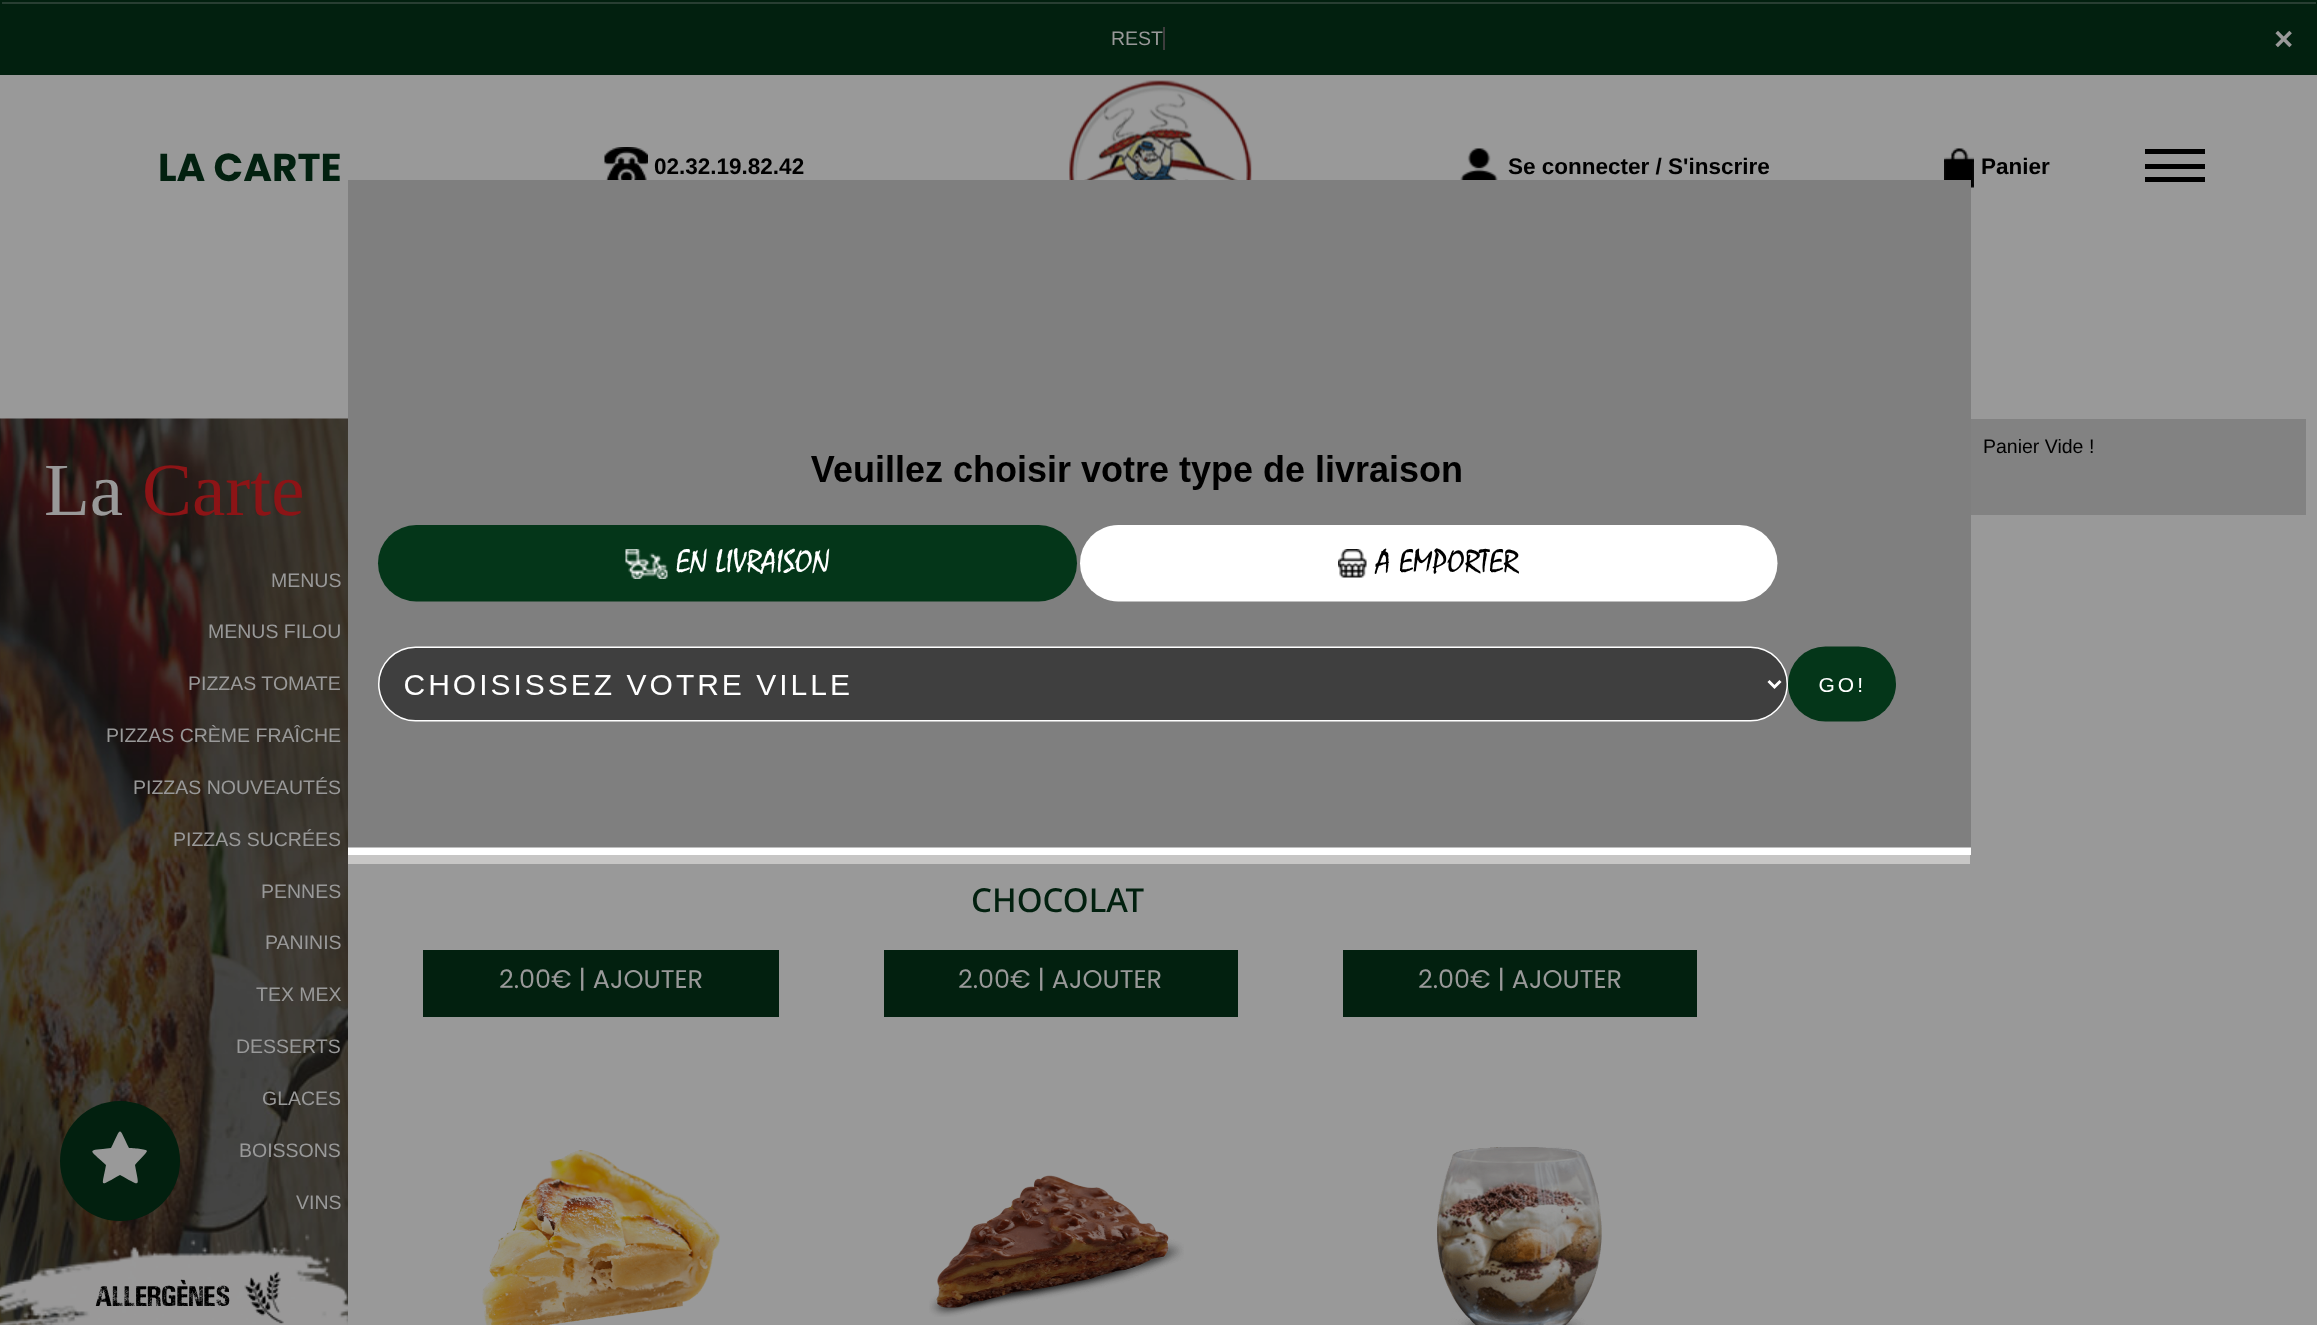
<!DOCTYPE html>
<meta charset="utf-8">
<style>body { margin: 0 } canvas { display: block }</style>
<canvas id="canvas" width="2317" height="1325"></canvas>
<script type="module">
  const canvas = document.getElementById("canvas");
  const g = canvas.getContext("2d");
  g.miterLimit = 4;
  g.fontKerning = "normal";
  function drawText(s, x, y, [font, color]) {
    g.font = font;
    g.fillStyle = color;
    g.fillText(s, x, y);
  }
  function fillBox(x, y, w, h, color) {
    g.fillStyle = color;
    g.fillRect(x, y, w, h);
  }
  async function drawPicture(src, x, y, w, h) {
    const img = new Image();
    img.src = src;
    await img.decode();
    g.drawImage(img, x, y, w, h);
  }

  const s1 = ["19.5px Liberation Sans", "#999999"];
  const s2 = ["bold 33px Liberation Sans", "#999999"];
  const s3 = ["bold 39px Poppins", "#02200F"];
  const s4 = ["bold 22.5px Liberation Sans", "#000000"];
  const s5 = ["19.5px Liberation Sans", "#000000"];
  const s6 = ["75px Liberation Serif", "#999999"];
  const s7 = ["75px Liberation Serif", "#8C1416"];
  const s8 = ["33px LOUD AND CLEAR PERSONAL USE", "#000000"];
  const s9 = ["25.5px Poppins", "#999999"];
  const s10 = ["500 33px Noto Sans", "#02200F"];

  fillBox(0, 0, 2317, 1325, "#999999");
  fillBox(0, 0, 2317, 75, "#02200F");
  fillBox(2, 2, 2314, 2, "#283E32");
  drawText("REST", 1111, 45, s1);
  fillBox(1163, 27, 2, 23, "#3D3D3D");
  drawText("×", 2274, 50, s2);
  drawText("LA CARTE", 158, 181, s3);
  await drawPicture("pic1.png", 604, 147, 44, 33);
  drawText("02.32.19.82.42", 654, 174, s4);
  await drawPicture("pic2.png", 1069, 80, 183, 100);
  await drawPicture("pic3.png", 1460, 148, 38, 32);
  drawText("Se connecter / S'inscrire", 1508, 174, s4);
  await drawPicture("pic4.png", 1944, 148, 30, 40);
  drawText("Panier", 1981, 174, s4);
  fillBox(2145, 164, 60, 5, "#000000");
  fillBox(2145, 149, 60, 5, "#000000");
  fillBox(2145, 177, 60, 5, "#000000");
  fillBox(1971, 419, 335, 96, "#828282");
  drawText("Panier Vide !", 1983, 453, s5);
  await drawPicture("pic5.png", 0, 418, 348, 907);
  drawText("La", 44, 515, s6);
  drawText("Carte", 142, 515, s7);
  drawText("MENUS", 271, 587, s1);
  drawText("MENUS FILOU", 208, 638, s1);
  drawText("PIZZAS TOMATE", 188, 690, s1);
  drawText("PIZZAS CRÈME FRAÎCHE", 106, 742, s1);
  drawText("PIZZAS NOUVEAUTÉS", 133, 794, s1);
  drawText("PIZZAS SUCRÉES", 173, 846, s1);
  drawText("PENNES", 261, 898, s1);
  drawText("PANINIS", 265, 949, s1);
  drawText("TEX MEX", 256, 1001, s1);
  drawText("DESSERTS", 236, 1053, s1);
  drawText("GLACES", 262, 1105, s1);
  drawText("BOISSONS", 239, 1157, s1);
  drawText("VINS", 296, 1209, s1);
  await drawPicture("pic6.png", 0, 1234, 348, 91);
  drawText("Allergènes", 95, 1306, s8);
  await drawPicture("pic7.png", 244, 1271, 40, 53);
  fillBox(423, 950, 356, 67, "#02200F");
  drawText("2.00€ | AJOUTER", 499, 988, s9);
  drawText("CHOCOLAT", 971, 912, s10);
  fillBox(884, 950, 354, 67, "#02200F");
  drawText("2.00€ | AJOUTER", 958, 988, s9);
  fillBox(1343, 950, 354, 67, "#02200F");
  drawText("2.00€ | AJOUTER", 1418, 988, s9);
  g.fillStyle = "#02200F";
  g.beginPath();
  g.arc(120, 1161, 60, 0, Math.PI * 2);
  g.fill();
  g.fillStyle = "#999999";
  g.beginPath();
  g.moveTo(147, 1151);
  g.bezierCurveTo(147, 1153, 136, 1163, 135, 1165);
  g.bezierCurveTo(139, 1188, 142, 1187, 120, 1175);
  g.bezierCurveTo(98, 1187, 102, 1188, 106, 1165);
  g.bezierCurveTo(88, 1148, 86, 1151, 111, 1148);
  g.bezierCurveTo(122, 1126, 118, 1126, 129, 1148);
  g.bezierCurveTo(132, 1148, 147, 1149, 147, 1151);
  g.closePath();
  g.fill();
  await drawPicture("pic8.png", 482, 1150, 238, 175);
  await drawPicture("pic9.png", 929, 1175, 255, 142);
  await drawPicture("pic10.png", 1437, 1147, 165, 178);
  fillBox(348, 855, 1622, 9, "#C7C6C5");
  await drawPicture("pic11.png", 348, 180, 1623, 675);
</script>
